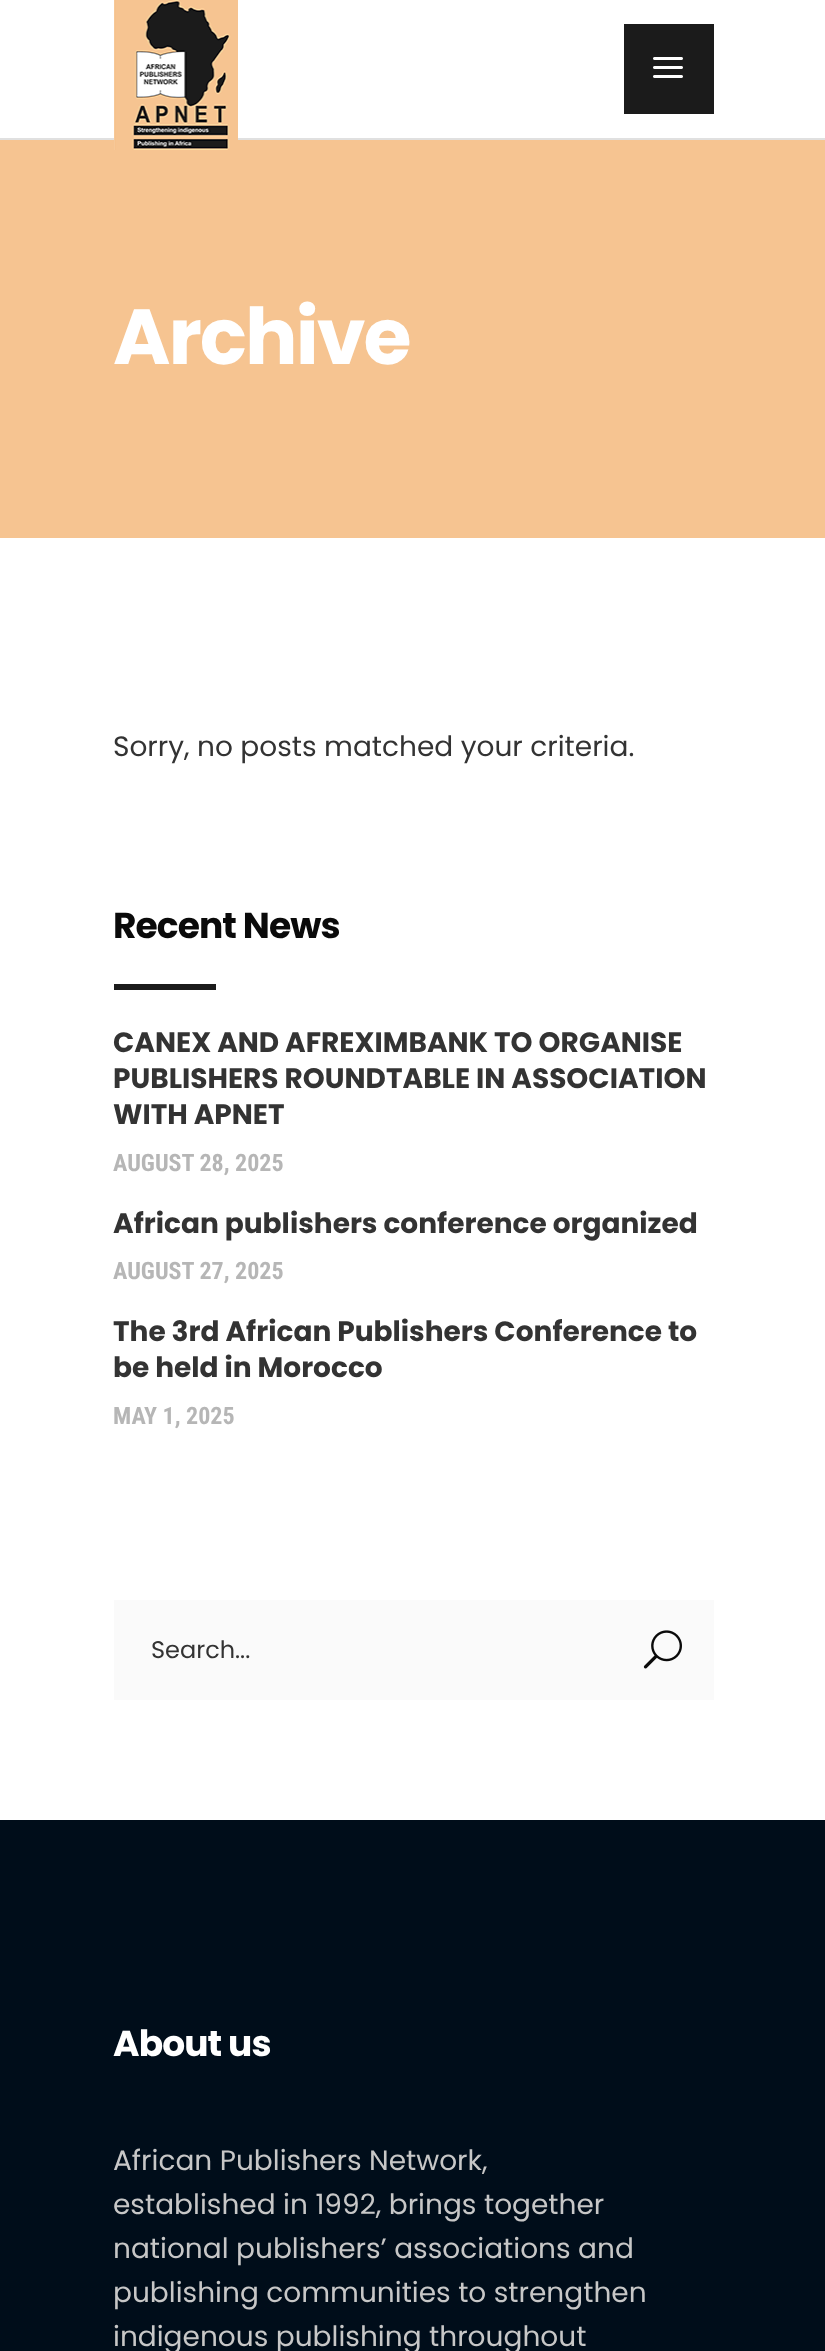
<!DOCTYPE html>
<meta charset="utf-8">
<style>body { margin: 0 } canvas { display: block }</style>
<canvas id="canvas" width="825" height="2351"></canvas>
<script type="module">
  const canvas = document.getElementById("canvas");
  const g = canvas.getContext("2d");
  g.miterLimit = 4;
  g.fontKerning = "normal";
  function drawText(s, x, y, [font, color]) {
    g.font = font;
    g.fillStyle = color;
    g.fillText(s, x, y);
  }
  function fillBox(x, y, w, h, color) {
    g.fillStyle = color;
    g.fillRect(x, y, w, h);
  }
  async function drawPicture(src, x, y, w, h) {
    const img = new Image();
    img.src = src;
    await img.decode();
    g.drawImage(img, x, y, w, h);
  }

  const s1 = ["bold 78px Poppins", "#FFFFFF"];
  const s2 = ["28px Poppins", "#333333"];
  const s3 = ["bold 36px Poppins", "#0A0A0A"];
  const s4 = ["bold 28px Poppins", "#333333"];
  const s5 = ["bold 24px Roboto Condensed", "#B6B6B6"];
  const s6 = ["24px Poppins", "#333333"];
  const s7 = ["bold 36px Poppins", "#FFFFFF"];
  const s8 = ["28px Poppins", "#C7C7C7"];

  fillBox(0, 0, 825, 2351, "#FFFFFF");
  fillBox(0, 138, 825, 2, "#E0E0E0");
  fillBox(0, 140, 825, 398, "#F6C491");
  await drawPicture("pic1.png", 114, 0, 124, 150);
  fillBox(624, 24, 90, 90, "#1B1B1B");
  await drawPicture("pic2.png", 653, 57, 30, 21);
  g.letterSpacing = "-2px";
  drawText("Archive", 113, 364, s1);
  g.letterSpacing = "0px";
  drawText("Sorry, no posts matched your criteria.", 113, 756, s2);
  g.letterSpacing = "-0.9px";
  drawText("Recent News", 113, 938, s3);
  fillBox(114, 984, 102, 6, "#1B1B1B");
  g.letterSpacing = "0px";
  drawText("CANEX AND AFREXIMBANK TO ORGANISE", 113, 1052, s4);
  drawText("PUBLISHERS ROUNDTABLE IN ASSOCIATION", 113, 1088, s4);
  drawText("WITH APNET", 113, 1124, s4);
  drawText("AUGUST 28, 2025", 113, 1171, s5);
  drawText("African publishers conference organized", 113, 1233, s4);
  drawText("AUGUST 27, 2025", 113, 1279, s5);
  drawText("The 3rd African Publishers Conference to", 113, 1341, s4);
  drawText("be held in Morocco", 113, 1377, s4);
  drawText("MAY 1, 2025", 113, 1424, s5);
  fillBox(114, 1600, 600, 100, "#FAFAFA");
  drawText("Search...", 151, 1658, s6);
  await drawPicture("pic3.png", 643, 1630, 39, 39);
  fillBox(0, 1820, 825, 531, "#000D1A");
  g.letterSpacing = "-0.9px";
  drawText("About us", 113, 2056, s7);
  g.letterSpacing = "0px";
  drawText("African Publishers Network,", 113, 2170, s8);
  drawText("established in 1992, brings together", 113, 2214, s8);
  drawText("national publishers’ associations and", 113, 2258, s8);
  drawText("publishing communities to strengthen", 113, 2302, s8);
  drawText("indigenous publishing throughout", 113, 2346, s8);
</script>
